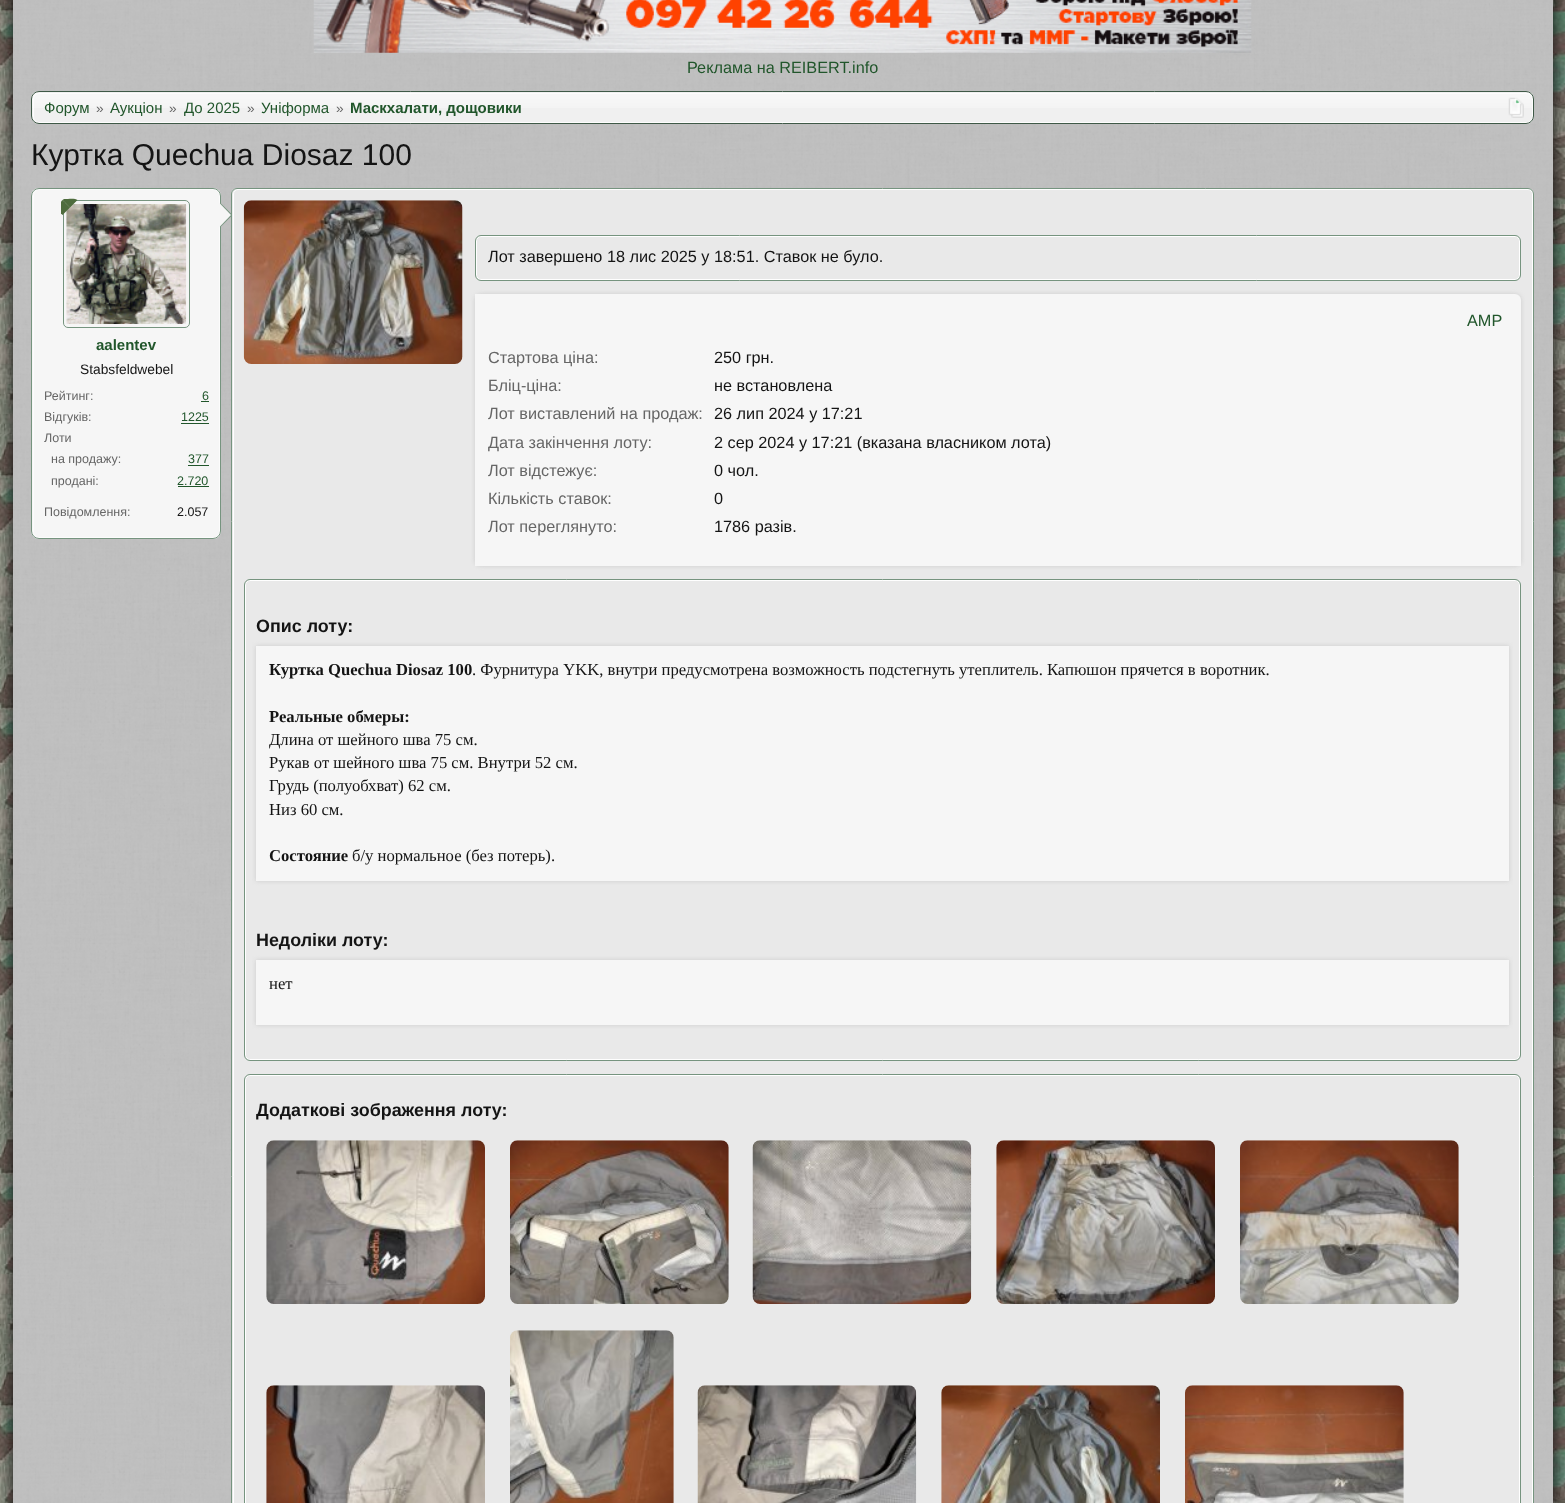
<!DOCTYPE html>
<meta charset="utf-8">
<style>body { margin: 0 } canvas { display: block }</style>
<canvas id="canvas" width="1565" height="1503"></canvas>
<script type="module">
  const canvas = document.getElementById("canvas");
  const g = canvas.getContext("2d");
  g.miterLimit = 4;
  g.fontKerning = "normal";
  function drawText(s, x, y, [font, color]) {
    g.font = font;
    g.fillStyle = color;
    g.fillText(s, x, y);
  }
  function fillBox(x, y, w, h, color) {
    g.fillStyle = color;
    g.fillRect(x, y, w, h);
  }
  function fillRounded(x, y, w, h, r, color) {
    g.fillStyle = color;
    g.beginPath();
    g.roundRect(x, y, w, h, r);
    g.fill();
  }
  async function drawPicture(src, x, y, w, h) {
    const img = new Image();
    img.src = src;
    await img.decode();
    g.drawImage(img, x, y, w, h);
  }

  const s1 = ["16.25px Liberation Sans", "#21562B"];
  const s2 = ["15px Liberation Sans", "#21562B"];
  const s3 = ["13.75px Liberation Sans", "#666666"];
  const s4 = ["bold 15px Liberation Sans", "#21562B"];
  const s5 = ["30px Liberation Sans", "#141414"];
  const s6 = ["13.75px Liberation Sans", "#141414"];
  const s7 = ["12.5px Liberation Sans", "#666666"];
  const s8 = ["12.5px Liberation Sans", "#21562B"];
  const s9 = ["12.5px Liberation Sans", "#141414"];
  const s10 = ["16.25px Liberation Sans", "#141414"];
  const s11 = ["16.25px Liberation Sans", "#666666"];
  const s12 = ["bold 17.9px Liberation Sans", "#141414"];
  const s13 = ["bold 16.65px Liberation Serif", "#141414"];
  const s14 = ["16.65px Liberation Serif", "#141414"];

  fillBox(0, 0, 1565, 1503, "#FFFFFF");
  await drawPicture("pic1.png", 0, 0, 1565, 1503);
  g.fillStyle = "#000000";
  g.filter = "blur(9.5px)";
  g.beginPath();
  g.rect(13, -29, 1540, 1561);
  g.fill();
  g.filter = "none";
  fillBox(13, 0, 1540, 1503, "#C0C0C0");
  await drawPicture("pic2.png", 13, 0, 1539, 1503);
  await drawPicture("pic3.png", 313, 0, 939, 53);
  drawText("Реклама на REIBERT.info", 687, 73, s1);
  fillRounded(31, 91, 1503, 33, 8, "#F0F0F0");
  await drawPicture("pic4.png", 32, 93, 1501, 15);
  g.beginPath();
  g.roundRect(33.5, 93.5, 1499, 29, 5.5);
  g.strokeStyle = "#FDFDFD";
  g.stroke();
  g.beginPath();
  g.roundRect(31.5, 91.5, 1502, 32, 7.5);
  g.strokeStyle = "#3F5947";
  g.stroke();
  drawText("Форум", 44, 113, s2);
  drawText("»", 96, 113, s3);
  drawText("Аукціон", 110, 113, s2);
  drawText("»", 169, 113, s3);
  drawText("До 2025", 184, 113, s2);
  drawText("»", 247, 113, s3);
  drawText("Уніформа", 261, 113, s2);
  drawText("»", 336, 113, s3);
  drawText("Маскхалати, дощовики", 350, 113, s4);
  await drawPicture("pic5.png", 1508, 97, 16, 21);
  drawText("Куртка Quechua Diosaz 100", 31, 165, s5);
  fillRounded(31, 188, 190, 351, 8, "#F6F6F6");
  g.beginPath();
  g.roundRect(33.5, 189.5, 186, 348, 5.5);
  g.strokeStyle = "#FCFCFC";
  g.stroke();
  g.beginPath();
  g.roundRect(31.5, 188.5, 189, 350, 7.5);
  g.strokeStyle = "#76947F";
  g.stroke();
  g.beginPath();
  g.roundRect(63.5, 200.5, 126, 127, 4.5);
  g.stroke();
  await drawPicture("pic6.png", 66, 204, 121, 120);
  g.fillStyle = "#4E6C3D";
  g.beginPath();
  g.moveTo(65, 199);
  g.bezierCurveTo(68, 199, 75.5, 198, 77.5, 200);
  g.lineTo(70, 207.5);
  g.lineTo(62.5, 200);
  g.bezierCurveTo(63, 199.5, 64, 199, 65, 199);
  g.closePath();
  g.fill();
  g.beginPath();
  g.moveTo(70, 207.5);
  g.lineTo(62.5, 215);
  g.lineTo(61, 213.5);
  g.lineTo(61, 201.5);
  g.lineTo(62.5, 200);
  g.closePath();
  g.fill();
  g.fillStyle = "#76947F";
  g.beginPath();
  g.moveTo(220, 227.5);
  g.lineTo(220, 202.5);
  g.lineTo(232.5, 215);
  g.closePath();
  g.fill();
  g.fillStyle = "#F6F6F6";
  g.beginPath();
  g.moveTo(219, 227.5);
  g.lineTo(219, 202.5);
  g.lineTo(231, 215);
  g.closePath();
  g.fill();
  drawText("aalentev", 96, 350, s4);
  drawText("Stabsfeldwebel", 80, 374, s6);
  drawText("Рейтинг:", 44, 400, s7);
  drawText("6", 202, 400, s8);
  fillBox(201, 401, 8, 1, "#21562B");
  drawText("Відгуків:", 44, 421, s7);
  drawText("1225", 181, 421, s8);
  fillBox(181, 423, 28, 1, "#21562B");
  drawText("Лоти", 44, 442, s7);
  drawText("на продажу:", 51, 463, s7);
  drawText("377", 188, 463, s8);
  fillBox(188, 465, 21, 1, "#21562B");
  drawText("продані:", 51, 485, s7);
  drawText("2.720", 177, 485, s8);
  fillBox(178, 486, 31, 1, "#21562B");
  drawText("Повідомлення:", 44, 516, s7);
  drawText("2.057", 177, 516, s9);
  fillRounded(231, 188, 1303, 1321, 6, "#E9E9E9");
  g.beginPath();
  g.roundRect(233.5, 189.5, 1299, 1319, 4.5);
  g.strokeStyle = "#FFFFFF";
  g.stroke();
  g.beginPath();
  g.roundRect(231.5, 188.5, 1302, 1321, 5.5);
  g.strokeStyle = "#76947F";
  g.stroke();
  await drawPicture("pic7.png", 243, 200, 220, 164);
  g.beginPath();
  g.roundRect(476.5, 236.5, 1043, 43, 4.5);
  g.strokeStyle = "#FFFFFF";
  g.stroke();
  g.beginPath();
  g.roundRect(475.5, 235.5, 1045, 45, 5.5);
  g.strokeStyle = "#76947F";
  g.stroke();
  drawText("Лот завершено 18 лис 2025 у 18:51. Ставок не було.", 488, 262, s10);
  g.fillStyle = "#CCCCCC";
  g.filter = "blur(2px)";
  g.beginPath();
  g.roundRect(475, 294, 1046, 272, 6);
  g.fill();
  g.filter = "none";
  g.fillStyle = "#F6F6F6";
  g.beginPath();
  g.roundRect(475, 294, 1046, 272, [0, 6, 0, 0]);
  g.fill();
  drawText("AMP", 1467, 326, s1);
  drawText("Стартова ціна:", 488, 363, s11);
  drawText("250 грн.", 714, 363, s10);
  drawText("Бліц-ціна:", 488, 391, s11);
  drawText("не встановлена", 714, 391, s10);
  drawText("Лот виставлений на продаж:", 488, 419, s11);
  drawText("26 лип 2024 у 17:21", 714, 419, s10);
  drawText("Дата закінчення лоту:", 488, 448, s11);
  drawText("2 сер 2024 у 17:21 (вказана власником лота)", 714, 448, s10);
  drawText("Лот відстежує:", 488, 476, s11);
  drawText("0 чол.", 714, 476, s10);
  drawText("Кількість ставок:", 488, 504, s11);
  drawText("0", 714, 504, s10);
  drawText("Лот переглянуто:", 488, 532, s11);
  drawText("1786 разів.", 714, 532, s10);
  g.beginPath();
  g.roundRect(245.5, 580.5, 1274, 479, 4.5);
  g.strokeStyle = "#FFFFFF";
  g.stroke();
  g.beginPath();
  g.roundRect(244.5, 579.5, 1276, 481, 5.5);
  g.strokeStyle = "#76947F";
  g.stroke();
  drawText("Опис лоту:", 256, 632, s12);
  g.fillStyle = "#CCCCCC";
  g.filter = "blur(2px)";
  g.beginPath();
  g.rect(256, 646, 1253, 235);
  g.fill();
  g.filter = "none";
  fillBox(256, 646, 1253, 235, "#F6F6F6");
  drawText("Куртка Quechua Diosaz 100", 269, 675, s13);
  drawText(". Фурнитура YKK, внутри предусмотрена возможность подстегнуть утеплитель. Капюшон прячется в воротник.", 472, 675, s14);
  drawText("Реальные обмеры:", 269, 722, s13);
  drawText("Длина от шейного шва 75 см.", 269, 745, s14);
  drawText("Рукав от шейного шва 75 см. Внутри 52 см.", 269, 768, s14);
  drawText("Грудь (полуобхват) 62 см.", 269, 791, s14);
  drawText("Низ 60 см.", 269, 815, s14);
  drawText("Состояние", 269, 861, s13);
  drawText("б/у нормальное (без потерь).", 352, 861, s14);
  drawText("Недоліки лоту:", 256, 946, s12);
  g.fillStyle = "#CCCCCC";
  g.filter = "blur(2px)";
  g.beginPath();
  g.rect(256, 960, 1253, 65);
  g.fill();
  g.filter = "none";
  fillBox(256, 960, 1253, 65, "#F6F6F6");
  drawText("нет", 269, 989, s14);
  g.beginPath();
  g.roundRect(245.5, 1075.5, 1274, 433, 4.5);
  g.strokeStyle = "#FFFFFF";
  g.stroke();
  g.beginPath();
  g.roundRect(244.5, 1074.5, 1276, 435, 5.5);
  g.strokeStyle = "#76947F";
  g.stroke();
  drawText("Додаткові зображення лоту:", 256, 1116, s12);
  await drawPicture("pic8.png", 266, 1140, 219, 164);
  await drawPicture("pic9.png", 510, 1140, 219, 164);
  await drawPicture("pic10.png", 752, 1140, 220, 164);
  await drawPicture("pic11.png", 996, 1140, 219, 164);
  await drawPicture("pic12.png", 1240, 1140, 219, 164);
  await drawPicture("pic13.png", 266, 1385, 219, 118);
  await drawPicture("pic14.png", 510, 1330, 164, 173);
  await drawPicture("pic15.png", 697, 1385, 220, 118);
  await drawPicture("pic16.png", 941, 1385, 219, 118);
  await drawPicture("pic17.png", 1185, 1385, 219, 118);
</script>
